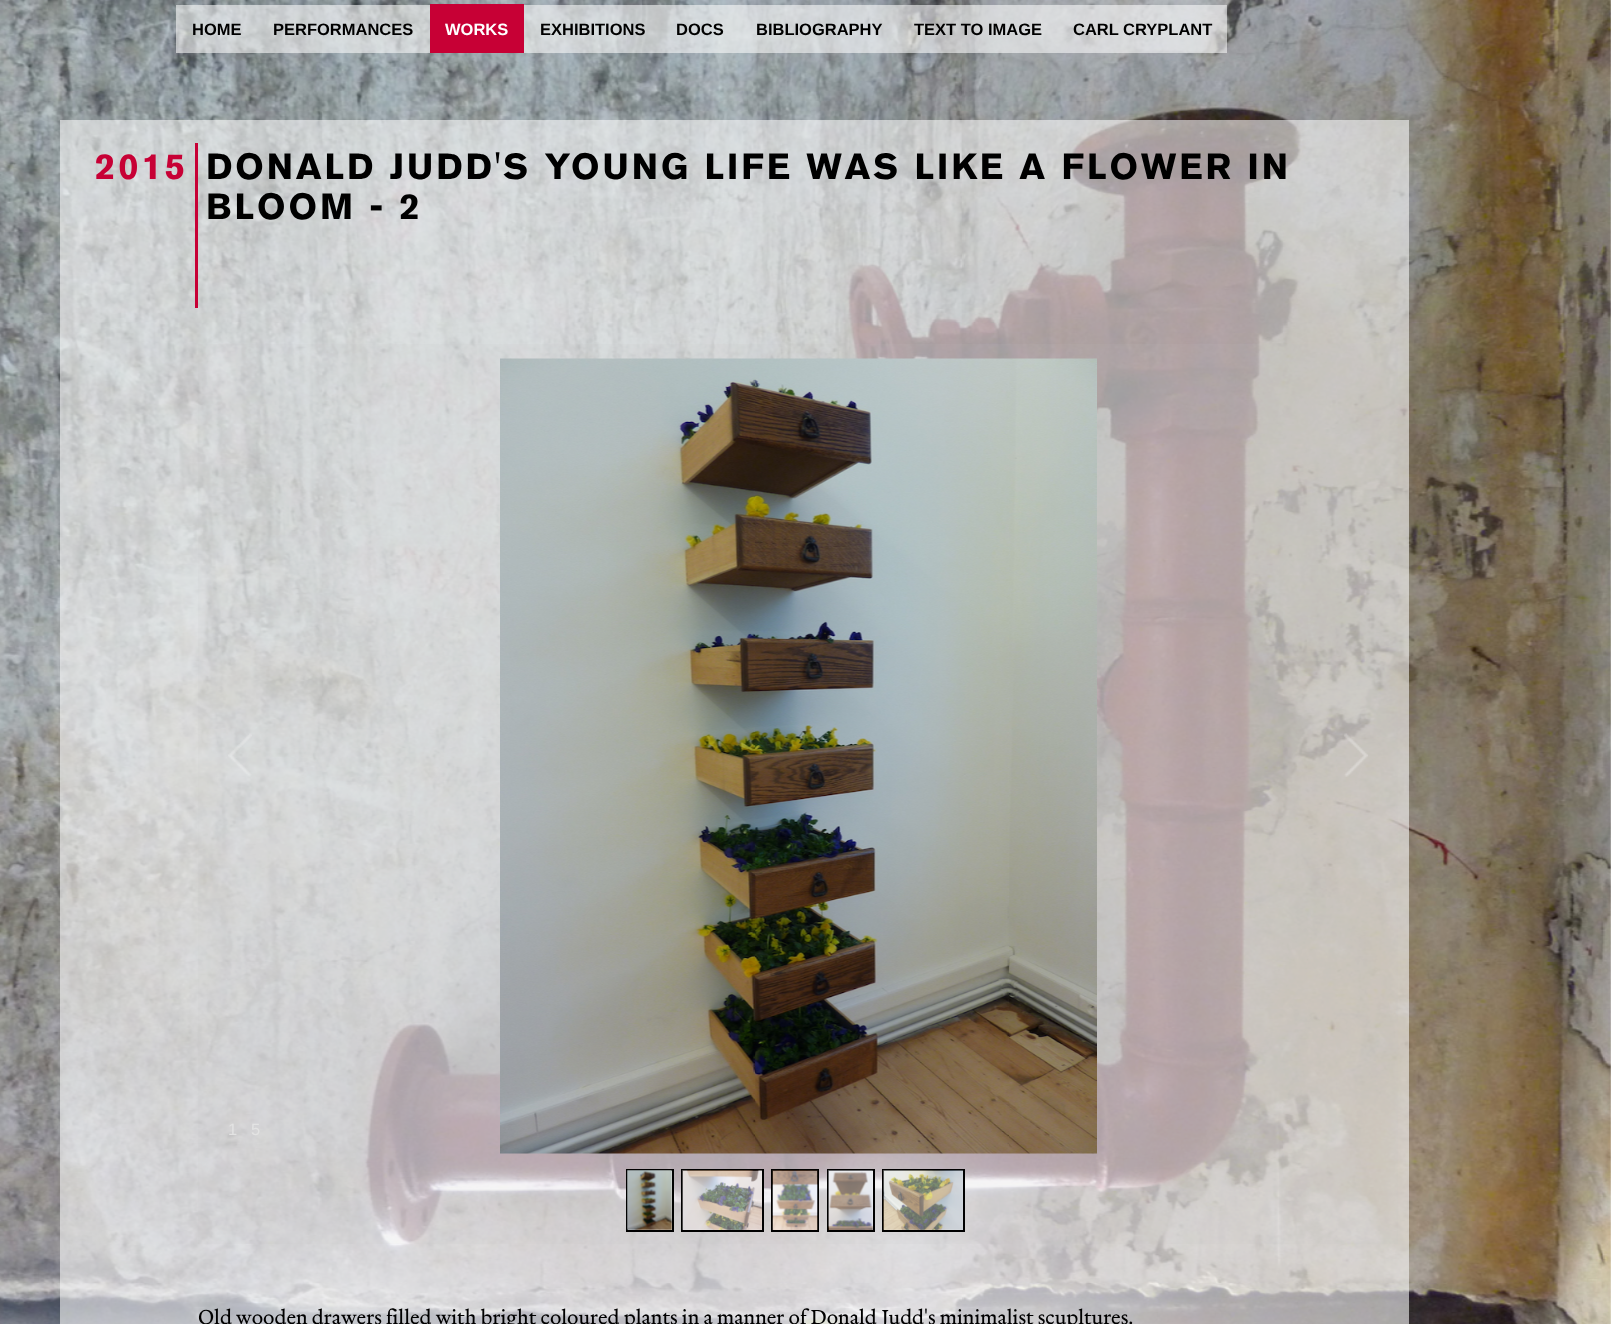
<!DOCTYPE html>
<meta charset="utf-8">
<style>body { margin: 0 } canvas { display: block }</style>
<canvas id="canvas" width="1611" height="1324"></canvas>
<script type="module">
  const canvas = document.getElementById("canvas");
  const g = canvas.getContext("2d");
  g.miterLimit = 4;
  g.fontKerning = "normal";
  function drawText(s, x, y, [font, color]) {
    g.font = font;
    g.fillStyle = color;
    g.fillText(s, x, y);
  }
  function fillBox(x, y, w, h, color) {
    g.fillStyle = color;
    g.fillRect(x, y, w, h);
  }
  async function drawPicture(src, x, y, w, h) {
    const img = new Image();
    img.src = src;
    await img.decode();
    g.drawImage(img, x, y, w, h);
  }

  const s1 = ["bold 16.5px Liberation Sans", "#000000"];
  const s2 = ["bold 16.5px Liberation Sans", "#FFFFFF"];
  const s3 = ["bold 36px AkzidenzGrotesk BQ", "#C70035"];
  const s4 = ["bold 36px AkzidenzGrotesk BQ", "#000000"];
  const s5 = ["16.5px Liberation Sans", "#E3E3E3"];
  const s6 = ["500 21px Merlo", "#000000"];

  fillBox(0, 0, 1611, 1324, "#FFFFFF");
  await drawPicture("pic1.png", 0, 0, 1611, 1324);
  fillBox(176, 5, 1051, 48, "rgba(248, 248, 248, 0.6)");
  drawText("HOME", 192, 35, s1);
  drawText("PERFORMANCES", 273, 35, s1);
  fillBox(430, 4, 94, 49, "#C70035");
  drawText("WORKS", 445, 35, s2);
  drawText("EXHIBITIONS", 540, 35, s1);
  drawText("DOCS", 676, 35, s1);
  drawText("BIBLIOGRAPHY", 756, 35, s1);
  drawText("TEXT TO IMAGE", 914, 35, s1);
  drawText("CARL CRYPLANT", 1073, 35, s1);
  fillBox(60, 120, 1349, 1204, "rgba(248, 248, 248, 0.6)");
  fillBox(195, 143, 3, 165, "#C70035");
  g.letterSpacing = "3px";
  drawText("2015", 95, 179, s3);
  drawText("DONALD JUDD'S YOUNG LIFE WAS LIKE A FLOWER IN", 206, 179, s4);
  drawText("BLOOM - 2", 206, 219, s4);
  fillBox(198, 344, 1200, 900, "rgba(200, 200, 200, 0.1)");
  await drawPicture("pic2.png", 500, 358, 597, 796);
  await drawPicture("pic3.png", 228, 733, 24, 44);
  await drawPicture("pic4.png", 1344, 733, 24, 44);
  g.letterSpacing = "0px";
  drawText("1", 228, 1135, s5);
  drawText("5", 251, 1135, s5);
  g.fillStyle = "#FFFFFF";
  g.beginPath();
  g.rect(627, 1170, 46, 61);
  g.fill();
  g.strokeStyle = "#000000";
  g.lineWidth = 2;
  g.stroke();
  await drawPicture("pic5.png", 627, 1170, 45, 60);
  g.beginPath();
  g.rect(682, 1170, 81, 61);
  g.fill();
  g.stroke();
  await drawPicture("pic6.png", 682, 1170, 80, 60);
  g.beginPath();
  g.rect(772, 1170, 46, 61);
  g.fill();
  g.stroke();
  await drawPicture("pic7.png", 772, 1170, 46, 60);
  g.beginPath();
  g.rect(828, 1170, 46, 61);
  g.fill();
  g.stroke();
  await drawPicture("pic8.png", 828, 1170, 45, 60);
  g.beginPath();
  g.rect(883, 1170, 81, 61);
  g.fill();
  g.stroke();
  await drawPicture("pic9.png", 883, 1170, 80, 60);
  drawText("Old wooden drawers filled with bright coloured plants in a manner of Donald Judd's minimalist scupltures.", 198, 1324, s6);
</script>
